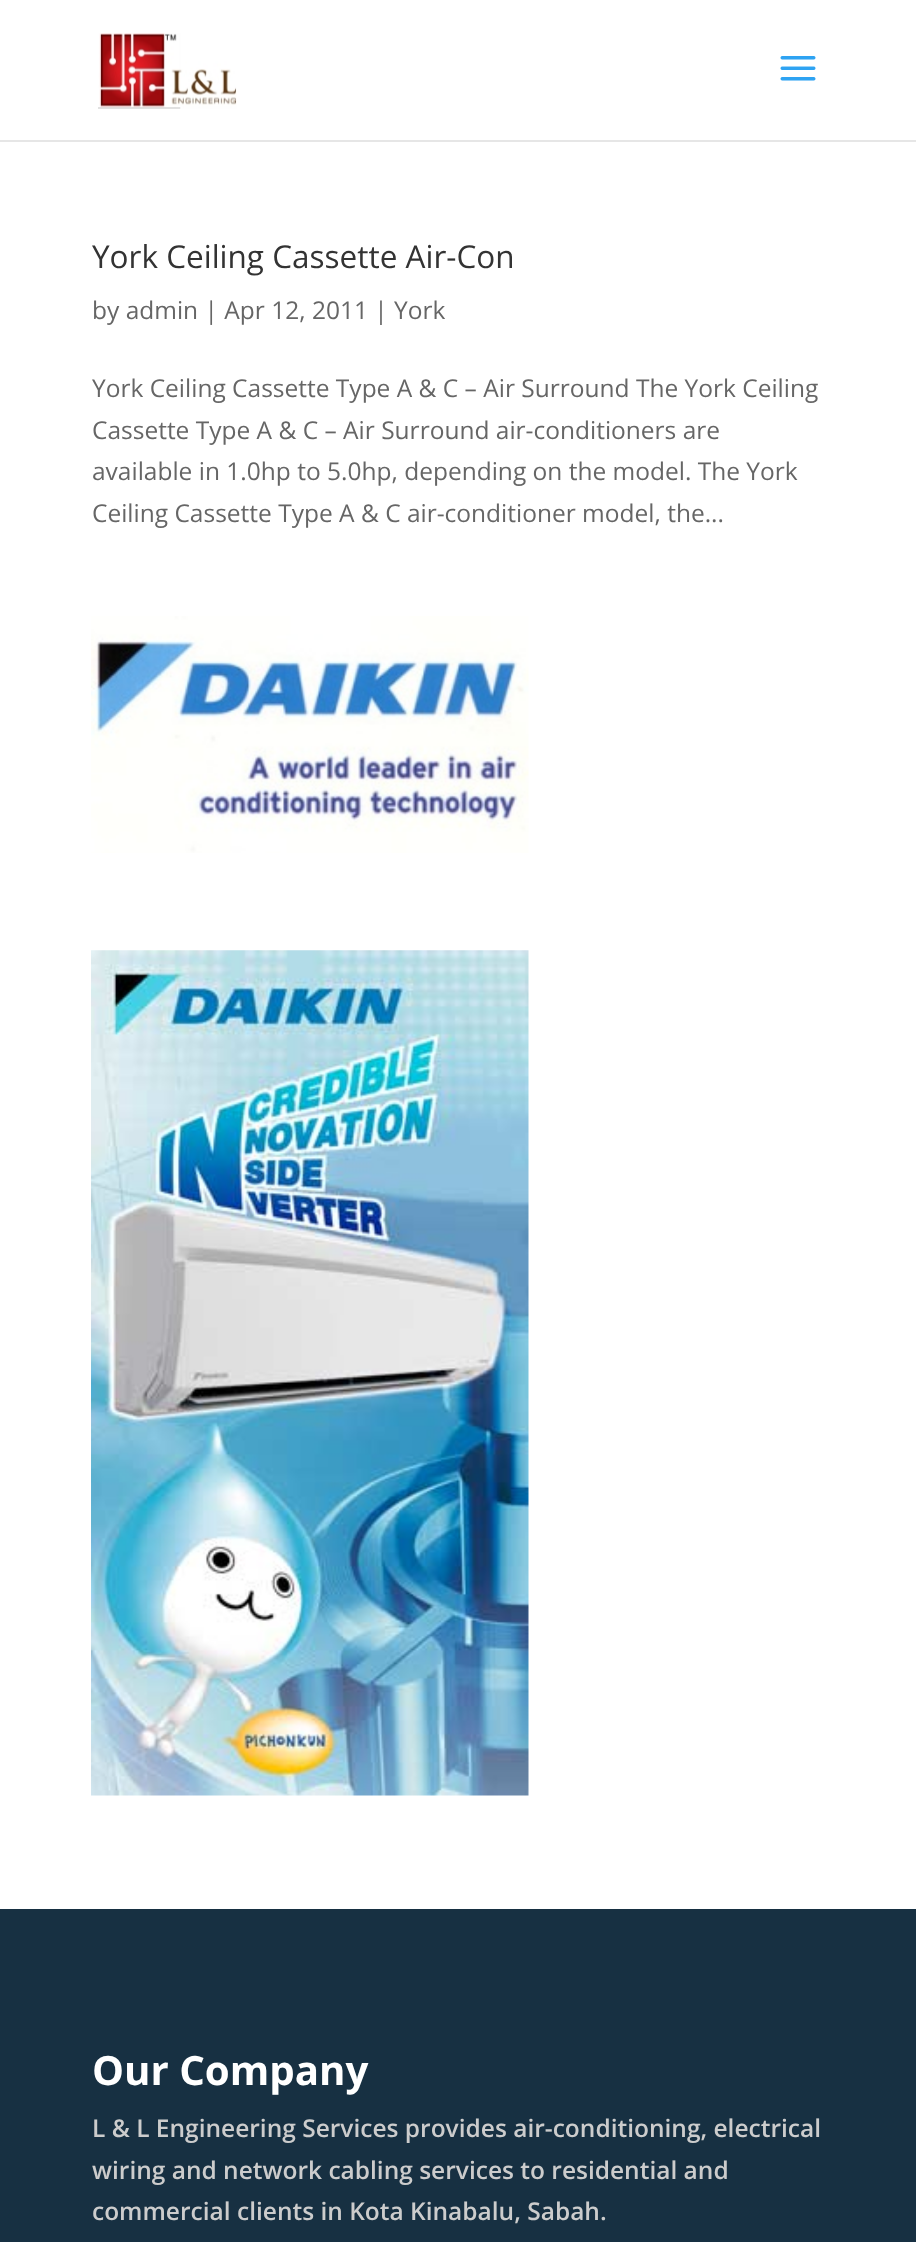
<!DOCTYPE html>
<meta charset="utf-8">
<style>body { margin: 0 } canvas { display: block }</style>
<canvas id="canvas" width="916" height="2242"></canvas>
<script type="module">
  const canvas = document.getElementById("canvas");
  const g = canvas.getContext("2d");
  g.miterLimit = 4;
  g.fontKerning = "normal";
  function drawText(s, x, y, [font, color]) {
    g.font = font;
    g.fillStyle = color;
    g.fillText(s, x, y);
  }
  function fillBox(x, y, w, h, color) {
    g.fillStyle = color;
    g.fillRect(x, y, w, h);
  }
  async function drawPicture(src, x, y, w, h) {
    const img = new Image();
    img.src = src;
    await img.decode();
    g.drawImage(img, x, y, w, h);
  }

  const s1 = ["31.5px Open Sans", "#333333"];
  const s2 = ["24.5px Open Sans", "#666666"];
  const s3 = ["bold 40.25px Open Sans", "#FFFFFF"];
  const s4 = ["600 24.5px Open Sans", "#CCCCCC"];

  fillBox(0, 0, 916, 2242, "#FFFFFF");
  fillBox(0, 140, 916, 2, "#E6E6E6");
  await drawPicture("pic1.png", 98, 33, 139, 76);
  await drawPicture("pic2.png", 780, 56, 36, 25);
  drawText("York Ceiling Cassette Air-Con", 92, 268, s1);
  drawText("by admin | Apr 12, 2011 | York", 92, 319, s2);
  drawText("York Ceiling Cassette Type A & C – Air Surround The York Ceiling", 92, 397, s2);
  drawText("Cassette Type A & C – Air Surround air-conditioners are", 92, 439, s2);
  drawText("available in 1.0hp to 5.0hp, depending on the model. The York", 92, 480, s2);
  drawText("Ceiling Cassette Type A & C air-conditioner model, the...", 92, 522, s2);
  await drawPicture("pic3.png", 91, 616, 438, 237);
  await drawPicture("pic4.png", 91, 950, 438, 846);
  fillBox(0, 1909, 916, 333, "#173042");
  drawText("Our Company", 92, 2085, s3);
  drawText("L & L Engineering Services provides air-conditioning, electrical", 92, 2137, s4);
  drawText("wiring and network cabling services to residential and", 92, 2179, s4);
  drawText("commercial clients in Kota Kinabalu, Sabah.", 92, 2220, s4);
</script>
